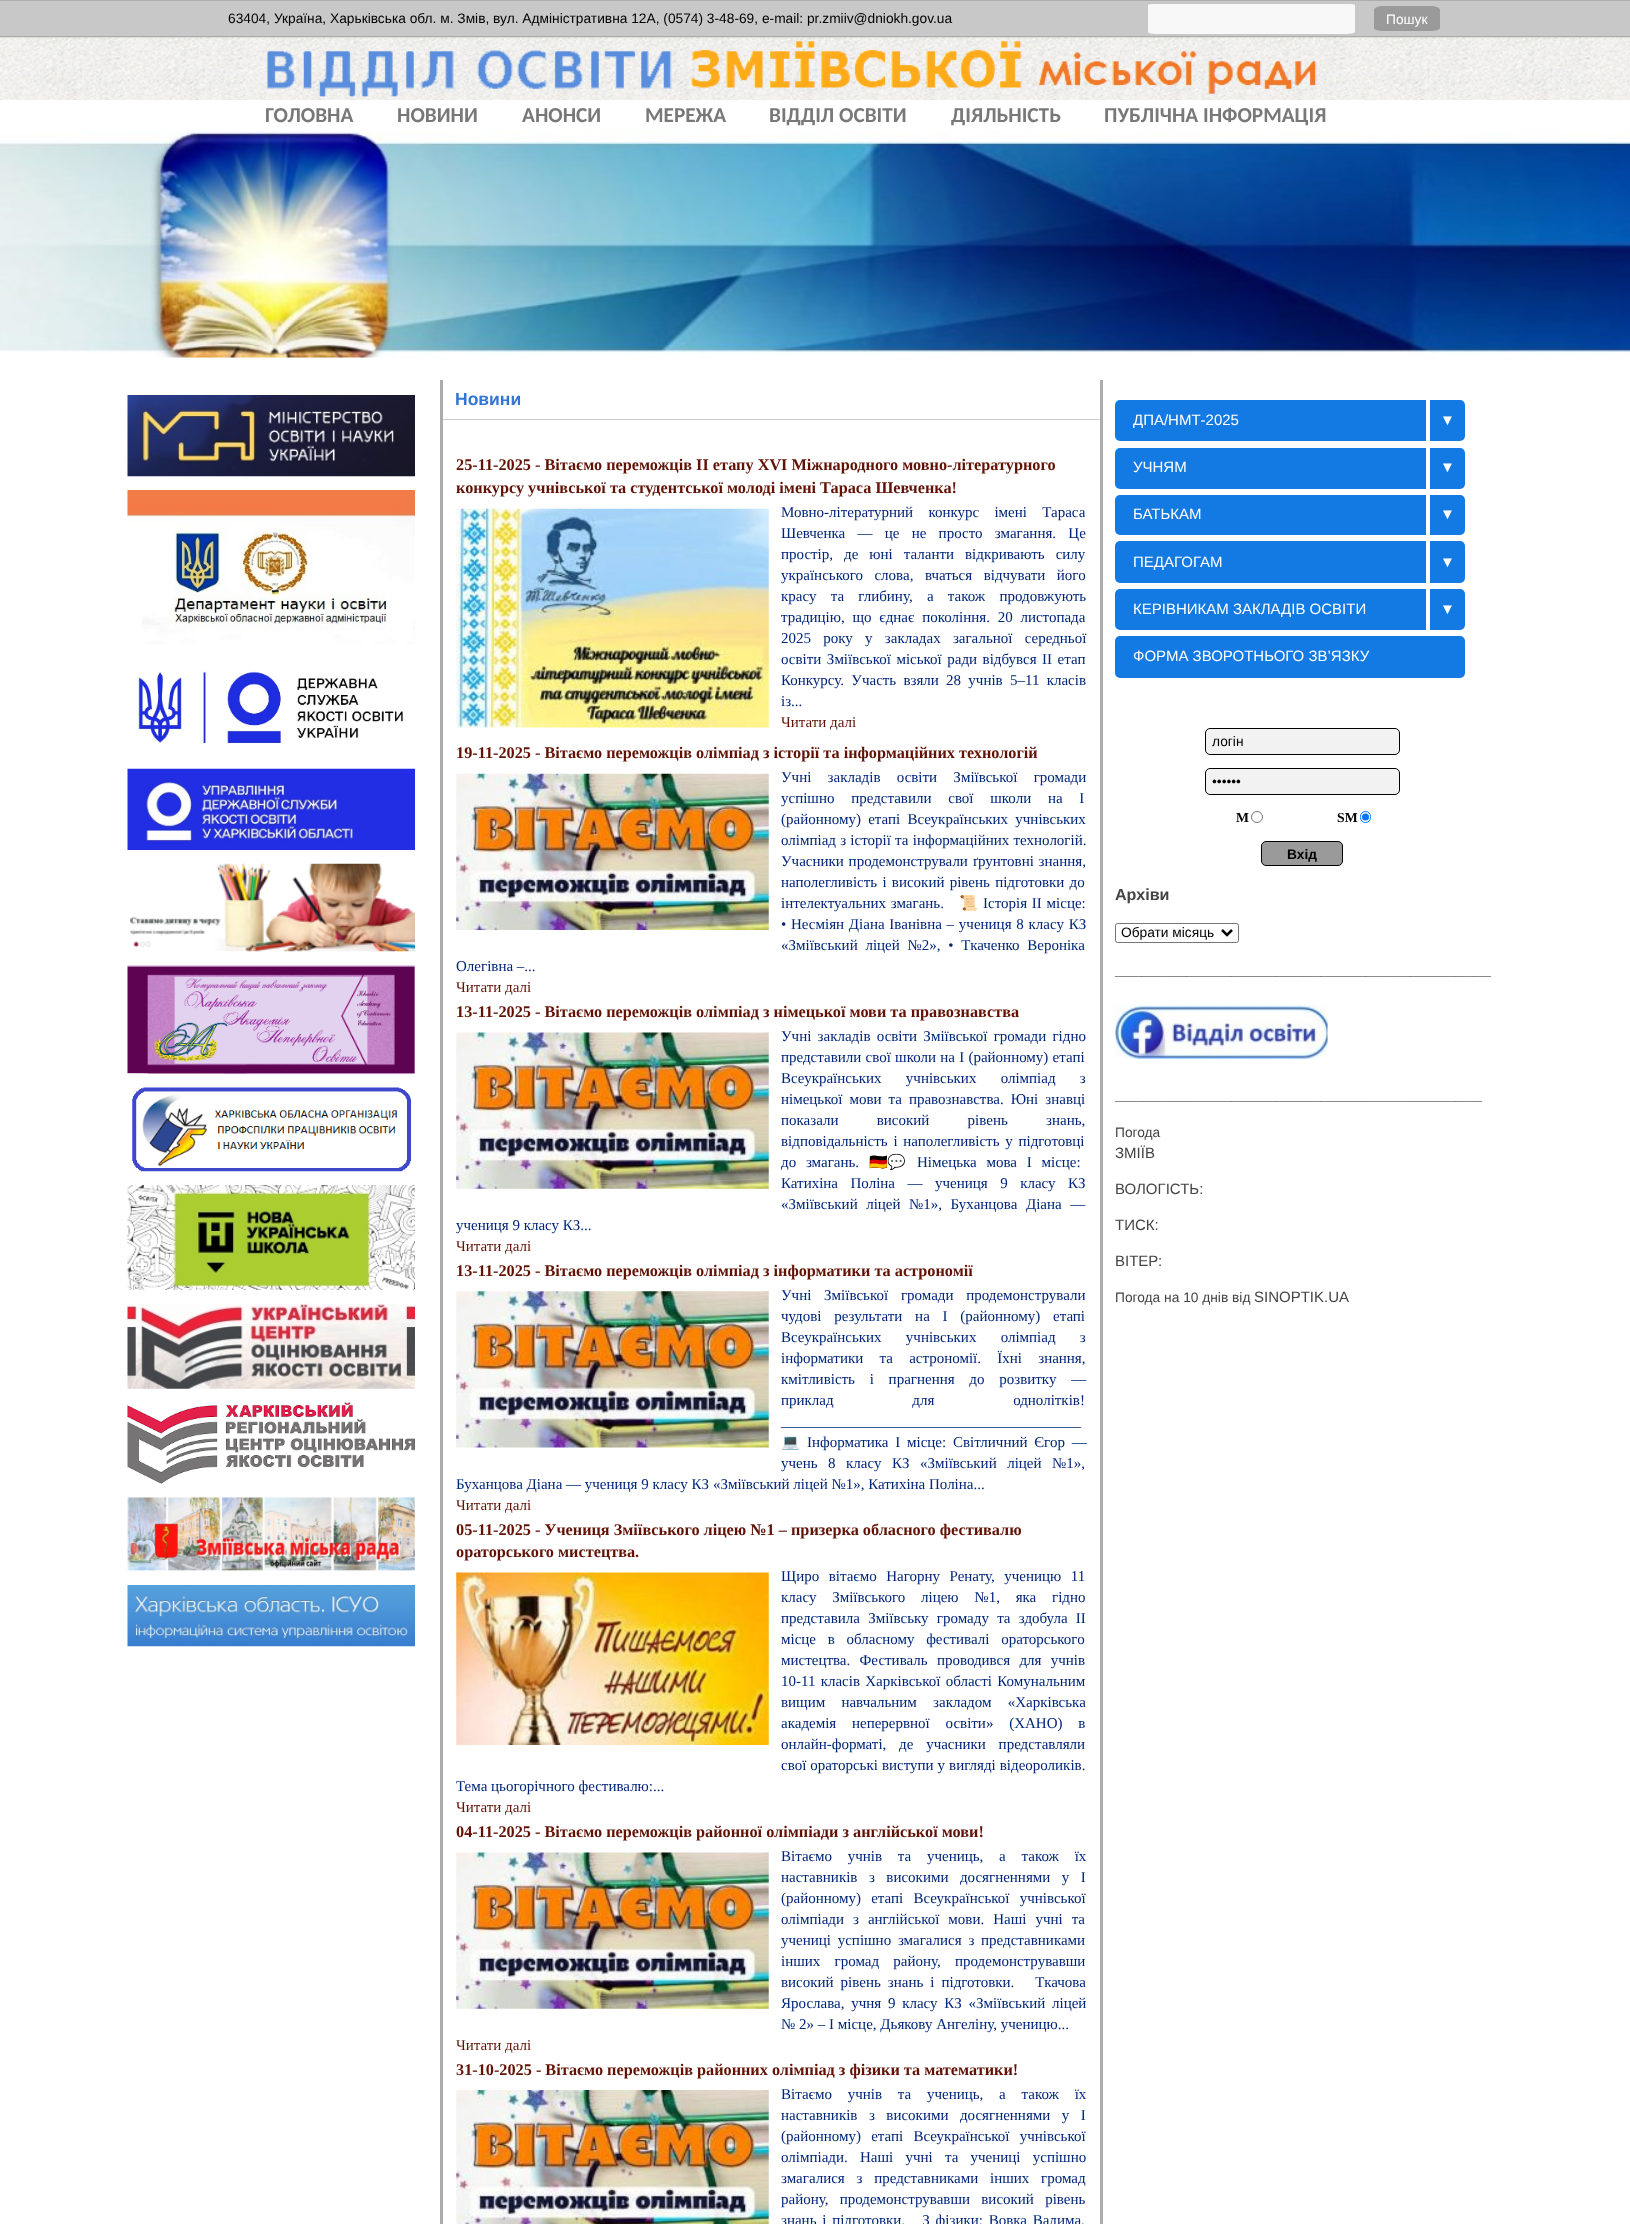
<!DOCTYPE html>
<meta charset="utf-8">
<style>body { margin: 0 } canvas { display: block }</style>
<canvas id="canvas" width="1630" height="2224"></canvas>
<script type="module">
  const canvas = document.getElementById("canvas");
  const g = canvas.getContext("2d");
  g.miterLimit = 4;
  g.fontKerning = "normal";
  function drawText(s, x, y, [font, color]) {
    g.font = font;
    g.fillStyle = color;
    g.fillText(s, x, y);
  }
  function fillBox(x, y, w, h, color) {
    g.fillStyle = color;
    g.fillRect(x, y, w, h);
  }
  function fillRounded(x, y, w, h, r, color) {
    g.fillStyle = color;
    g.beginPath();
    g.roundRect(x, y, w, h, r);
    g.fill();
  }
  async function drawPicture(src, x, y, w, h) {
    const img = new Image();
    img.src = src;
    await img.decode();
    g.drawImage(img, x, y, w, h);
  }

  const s1 = ["13.75px Liberation Sans", "#000000"];
  const s2 = ["13.75px Liberation Sans", "#FFFFFF"];
  const s3 = ["bold 21.25px Carlito", "#787878"];
  const s4 = ["bold 17.5px Liberation Sans", "#3475D3"];
  const s5 = ["bold 16.25px Liberation Serif", "#611205"];
  const s6 = ["15px Liberation Serif", "#002579"];
  const s7 = ["15px Liberation Serif", "#611205"];
  const s8 = ["15px Noto Color Emoji", "#002579"];
  const s9 = ["15px Liberation Sans", "#FFFFFF"];
  const s10 = ["bold 13.75px Liberation Serif", "#000000"];
  const s11 = ["bold 13.75px Liberation Sans", "#000000"];
  const s12 = ["bold 16.1px Liberation Sans", "#444444"];
  const s13 = ["13.75px Liberation Sans", "#444444"];
  const s14 = ["15px Liberation Sans", "#444444"];

  fillBox(0, 0, 1630, 2224, "#FFFFFF");
  fillBox(0, 1, 1630, 37, "#C8C8C8");
  fillBox(0, 0, 1630, 1, "#ACACAC");
  fillBox(0, 36, 1630, 1, "#ACACAC");
  drawText("63404, Україна, Харьківська обл. м. Змів, вул. Адміністративна 12А, (0574) 3-48-69, e-mail: pr.zmiiv@dniokh.gov.ua", 228, 23, s1);
  g.fillStyle = "#F8F8F8";
  g.beginPath();
  g.moveTo(1158, 4);
  g.lineTo(1345, 4);
  g.bezierCurveTo(1350, 4, 1355, 4, 1355, 5);
  g.lineTo(1355, 32);
  g.bezierCurveTo(1355, 33, 1350, 34, 1345, 34);
  g.lineTo(1158, 34);
  g.bezierCurveTo(1152, 34, 1148, 33, 1148, 32);
  g.lineTo(1148, 5);
  g.bezierCurveTo(1148, 4, 1152, 4, 1158, 4);
  g.closePath();
  g.fill();
  g.fillStyle = "#9A9A9A";
  g.beginPath();
  g.moveTo(1384, 6);
  g.lineTo(1430, 6);
  g.bezierCurveTo(1436, 6, 1440, 8, 1440, 10);
  g.lineTo(1440, 28);
  g.bezierCurveTo(1440, 30, 1436, 31, 1430, 31);
  g.lineTo(1384, 31);
  g.bezierCurveTo(1378, 31, 1374, 30, 1374, 28);
  g.lineTo(1374, 10);
  g.bezierCurveTo(1374, 8, 1378, 6, 1384, 6);
  g.closePath();
  g.fill();
  drawText("Пошук", 1386, 24, s2);
  await drawPicture("pic1.png", 0, 37, 1630, 63);
  await drawPicture("pic2.png", 267, 41, 1050, 56);
  drawText("ГОЛОВНА", 265, 122, s3);
  drawText("НОВИНИ", 397, 122, s3);
  drawText("АНОНСИ", 522, 122, s3);
  drawText("МЕРЕЖА", 645, 122, s3);
  drawText("ВІДДІЛ ОСВІТИ", 769, 122, s3);
  drawText("ДІЯЛЬНІСТЬ", 951, 122, s3);
  drawText("ПУБЛІЧНА ІНФОРМАЦІЯ", 1104, 122, s3);
  await drawPicture("pic3.png", 0, 131, 1630, 227);
  await drawPicture("pic4.png", 127, 395, 288, 82);
  await drawPicture("pic5.png", 127, 490, 288, 154);
  await drawPicture("pic6.png", 137, 671, 266, 73);
  await drawPicture("pic7.png", 127, 768, 288, 82);
  await drawPicture("pic8.png", 130, 863, 285, 89);
  await drawPicture("pic9.png", 127, 965, 288, 109);
  await drawPicture("pic10.png", 132, 1087, 279, 85);
  await drawPicture("pic11.png", 127, 1185, 288, 105);
  await drawPicture("pic12.png", 127, 1303, 288, 86);
  await drawPicture("pic13.png", 127, 1402, 288, 82);
  await drawPicture("pic14.png", 127, 1497, 288, 74);
  await drawPicture("pic15.png", 127, 1585, 288, 62);
  fillBox(1100, 380, 3, 1844, "#ACACAC");
  fillBox(440, 380, 3, 1844, "#ACACAC");
  fillBox(443, 419, 657, 1, "#CCCCCC");
  drawText("Новини", 455, 405, s4);
  drawText("25-11-2025 - Вітаємо переможців ІІ етапу XVI Міжнародного мовно-літературного", 456, 470, s5);
  drawText("конкурсу учнівської та студентської молоді імені Тараса Шевченка!", 456, 493, s5);
  await drawPicture("pic16.png", 456, 508, 313, 220);
  g.wordSpacing = "11.5px";
  drawText("Мовно-літературний конкурс імені Тараса", 781, 517, s6);
  g.wordSpacing = "8.5px";
  drawText("Шевченка — це не просто змагання. Це", 781, 538, s6);
  g.wordSpacing = "7.25px";
  drawText("простір, де юні таланти відкривають силу", 781, 559, s6);
  g.wordSpacing = "7.75px";
  drawText("українського слова, вчаться відчувати його", 781, 580, s6);
  g.wordSpacing = "10.5px";
  drawText("красу та глибину, а також продовжують", 781, 601, s6);
  g.wordSpacing = "4px";
  drawText("традицію, що єднає покоління. 20 листопада", 781, 622, s6);
  g.wordSpacing = "8.5px";
  drawText("2025 року у закладах загальної середньої", 781, 643, s6);
  g.wordSpacing = "1.75px";
  drawText("освіти Зміївської міської ради відбувся ІІ етап", 781, 664, s6);
  g.wordSpacing = "3.5px";
  drawText("Конкурсу. Участь взяли 28 учнів 5–11 класів", 781, 685, s6);
  g.wordSpacing = "0px";
  drawText("із...", 781, 706, s6);
  drawText("Читати далi", 781, 727, s7);
  drawText("19-11-2025 - Вітаємо переможців олімпіад з історії та інформаційних технологій", 456, 758, s5);
  g.wordSpacing = "12.5px";
  drawText("Учні закладів освіти Зміївської громади", 781, 782, s6);
  g.wordSpacing = "13px";
  drawText("успішно представили свої школи на І", 781, 803, s6);
  g.wordSpacing = "3.5px";
  drawText("(районному) етапі Всеукраїнських учнівських", 781, 824, s6);
  g.wordSpacing = "0.5px";
  drawText("олімпіад з історії та інформаційних технологій.", 781, 845, s6);
  g.wordSpacing = "1px";
  drawText("Учасники продемонстрували ґрунтовні знання,", 781, 866, s6);
  g.wordSpacing = "1.5px";
  drawText("наполегливість і високий рівень підготовки до", 781, 887, s6);
  g.wordSpacing = "1px";
  drawText("інтелектуальних змагань.", 781, 908, s6);
  g.wordSpacing = "0px";
  drawText("📜", 959, 908, s8);
  g.wordSpacing = "1px";
  drawText("Історія ІІ місце:", 983, 908, s6);
  drawText("• Несміян Діана Іванівна – учениця 8 класу КЗ", 781, 929, s6);
  g.wordSpacing = "4px";
  drawText("«Зміївський ліцей №2», • Ткаченко Вероніка", 781, 950, s6);
  g.wordSpacing = "0px";
  drawText("Олегівна –...", 456, 971, s6);
  await drawPicture("pic17.png", 456, 773, 313, 157);
  drawText("Читати далi", 456, 992, s7);
  drawText("13-11-2025 - Вітаємо переможців олімпіад з німецької мови та правознавства", 456, 1017, s5);
  g.wordSpacing = "2.5px";
  drawText("Учні закладів освіти Зміївської громади гідно", 781, 1041, s6);
  g.wordSpacing = "0.5px";
  drawText("представили свої школи на І (районному) етапі", 781, 1062, s6);
  g.wordSpacing = "20.5px";
  drawText("Всеукраїнських учнівських олімпіад з", 781, 1083, s6);
  g.wordSpacing = "3.25px";
  drawText("німецької мови та правознавства. Юні знавці", 781, 1104, s6);
  g.wordSpacing = "34.5px";
  drawText("показали високий рівень знань,", 781, 1125, s6);
  g.wordSpacing = "2px";
  drawText("відповідальність і наполегливість у підготовці", 781, 1146, s6);
  g.wordSpacing = "6px";
  drawText("до змагань.", 781, 1167, s6);
  g.wordSpacing = "0px";
  drawText("🇩🇪💬", 869, 1167, s8);
  g.wordSpacing = "6px";
  drawText("Німецька мова І місце:", 917, 1167, s6);
  g.wordSpacing = "8.75px";
  drawText("Катихіна Поліна — учениця 9 класу КЗ", 781, 1188, s6);
  g.wordSpacing = "4.75px";
  drawText("«Зміївський ліцей №1», Буханцова Діана —", 781, 1209, s6);
  g.wordSpacing = "0px";
  drawText("учениця 9 класу КЗ...", 456, 1230, s6);
  await drawPicture("pic18.png", 456, 1032, 313, 157);
  drawText("Читати далi", 456, 1251, s7);
  drawText("13-11-2025 - Вітаємо переможців олімпіад з інформатики та астрономії", 456, 1276, s5);
  g.wordSpacing = "9px";
  drawText("Учні Зміївської громади продемонстрували", 781, 1300, s6);
  drawText("чудові результати на І (районному) етапі", 781, 1321, s6);
  g.wordSpacing = "20.5px";
  drawText("Всеукраїнських учнівських олімпіад з", 781, 1342, s6);
  g.wordSpacing = "12.5px";
  drawText("інформатики та астрономії. Їхні знання,", 781, 1363, s6);
  g.wordSpacing = "11px";
  drawText("кмітливість і прагнення до розвитку —", 781, 1384, s6);
  g.wordSpacing = "75px";
  drawText("приклад для однолітків!", 781, 1405, s6);
  g.wordSpacing = "0px";
  drawText("________________________________________", 781, 1426, s6);
  drawText("💻", 781, 1447, s8);
  g.wordSpacing = "3px";
  drawText("Інформатика І місце: Світличний Єгор —", 807, 1447, s6);
  g.wordSpacing = "6.75px";
  drawText("учень 8 класу КЗ «Зміївський ліцей №1»,", 781, 1468, s6);
  g.wordSpacing = "0px";
  drawText("Буханцова Діана — учениця 9 класу КЗ «Зміївський ліцей №1», Катихіна Поліна...", 456, 1489, s6);
  await drawPicture("pic19.png", 456, 1291, 313, 157);
  drawText("Читати далi", 456, 1510, s7);
  drawText("05-11-2025 - Учениця Зміївського ліцею №1 – призерка обласного фестивалю", 456, 1535, s5);
  drawText("ораторського мистецтва.", 456, 1557, s5);
  g.wordSpacing = "5.75px";
  drawText("Щиро вітаємо Нагорну Ренату, ученицю 11", 781, 1581, s6);
  g.wordSpacing = "12px";
  drawText("класу Зміївського ліцею №1, яка гідно", 781, 1602, s6);
  g.wordSpacing = "4.5px";
  drawText("представила Зміївську громаду та здобула II", 781, 1623, s6);
  g.wordSpacing = "8px";
  drawText("місце в обласному фестивалі ораторського", 781, 1644, s6);
  g.wordSpacing = "5.5px";
  drawText("мистецтва. Фестиваль проводився для учнів", 781, 1665, s6);
  g.wordSpacing = "1.5px";
  drawText("10-11 класів Харківської області Комунальним", 781, 1686, s6);
  g.wordSpacing = "12.5px";
  drawText("вищим навчальним закладом «Харківська", 781, 1707, s6);
  g.wordSpacing = "12px";
  drawText("академія неперервної освіти» (ХАНО) в", 781, 1728, s6);
  g.wordSpacing = "9px";
  drawText("онлайн-форматі, де учасники представляли", 781, 1749, s6);
  g.wordSpacing = "0.25px";
  drawText("свої ораторські виступи у вигляді відеороликів.", 781, 1770, s6);
  g.wordSpacing = "0px";
  drawText("Тема цьогорічного фестивалю:...", 456, 1791, s6);
  await drawPicture("pic20.png", 456, 1572, 313, 173);
  drawText("Читати далi", 456, 1812, s7);
  drawText("04-11-2025 - Вітаємо переможців районної олімпіади з англійської мови!", 456, 1837, s5);
  await drawPicture("pic21.png", 456, 1852, 313, 157);
  g.wordSpacing = "12px";
  drawText("Вітаємо учнів та учениць, а також їх", 781, 1861, s6);
  g.wordSpacing = "7.75px";
  drawText("наставників з високими досягненнями у І", 781, 1882, s6);
  g.wordSpacing = "6.5px";
  drawText("(районному) етапі Всеукраїнської учнівської", 781, 1903, s6);
  g.wordSpacing = "5.25px";
  drawText("олімпіади з англійської мови. Наші учні та", 781, 1924, s6);
  g.wordSpacing = "3px";
  drawText("учениці успішно змагалися з представниками", 781, 1945, s6);
  g.wordSpacing = "10.5px";
  drawText("інших громад району, продемонструвавши", 781, 1966, s6);
  g.wordSpacing = "3.25px";
  drawText("високий рівень знань і підготовки.   Ткачова", 781, 1987, s6);
  g.wordSpacing = "3px";
  drawText("Ярослава, учня 9 класу КЗ «Зміївський ліцей", 781, 2008, s6);
  g.wordSpacing = "0px";
  drawText("№ 2» – І місце, Дьякову Ангеліну, ученицю...", 781, 2029, s6);
  drawText("Читати далi", 456, 2050, s7);
  drawText("31-10-2025 - Вітаємо переможців районних олімпіад з фізики та математики!", 456, 2075, s5);
  await drawPicture("pic22.png", 456, 2090, 313, 134);
  g.wordSpacing = "12px";
  drawText("Вітаємо учнів та учениць, а також їх", 781, 2099, s6);
  g.wordSpacing = "7.75px";
  drawText("наставників з високими досягненнями у І", 781, 2120, s6);
  g.wordSpacing = "6.5px";
  drawText("(районному) етапі Всеукраїнської учнівської", 781, 2141, s6);
  g.wordSpacing = "8.5px";
  drawText("олімпіади. Наші учні та учениці успішно", 781, 2162, s6);
  g.wordSpacing = "8px";
  drawText("змагалися з представниками інших громад", 781, 2183, s6);
  g.wordSpacing = "7.5px";
  drawText("району, продемонструвавши високий рівень", 781, 2204, s6);
  g.wordSpacing = "2px";
  drawText("знань і підготовки.   З фізики: Вовка Вадима,", 781, 2225, s6);
  fillRounded(1115, 400, 350, 41, 5, "#147AE3");
  g.wordSpacing = "0px";
  drawText("ДПА/НМТ-2025", 1133, 425, s9);
  fillBox(1426, 400, 4, 41, "#FFFFFF");
  drawText("▼", 1440, 425, s9);
  fillRounded(1115, 448, 350, 41, 5, "#147AE3");
  drawText("УЧНЯМ", 1133, 472, s9);
  fillBox(1426, 448, 4, 41, "#FFFFFF");
  drawText("▼", 1440, 472, s9);
  fillRounded(1115, 495, 350, 40, 5, "#147AE3");
  drawText("БАТЬКАМ", 1133, 519, s9);
  fillBox(1426, 495, 4, 40, "#FFFFFF");
  drawText("▼", 1440, 519, s9);
  fillRounded(1115, 541, 350, 42, 5, "#147AE3");
  drawText("ПЕДАГОГАМ", 1133, 567, s9);
  fillBox(1426, 541, 4, 42, "#FFFFFF");
  drawText("▼", 1440, 567, s9);
  fillRounded(1115, 589, 350, 41, 5, "#147AE3");
  drawText("КЕРІВНИКАМ ЗАКЛАДІВ ОСВІТИ", 1133, 614, s9);
  fillBox(1426, 589, 4, 41, "#FFFFFF");
  drawText("▼", 1440, 614, s9);
  fillRounded(1115, 636, 350, 42, 5, "#147AE3");
  drawText("ФОРМА ЗВОРОТНЬОГО ЗВ’ЯЗКУ", 1133, 661, s9);
  g.fillStyle = "#F2F2F2";
  g.beginPath();
  g.roundRect(1205.5, 728.5, 194, 26, 4.5);
  g.fill();
  g.strokeStyle = "#000000";
  g.stroke();
  drawText("логiн", 1212, 746, s1);
  g.fillStyle = "#F2F2F2";
  g.beginPath();
  g.roundRect(1205.5, 768.5, 194, 26, 4.5);
  g.fill();
  g.stroke();
  drawText("••••••", 1212, 786, s1);
  drawText("M", 1236, 822, s10);
  g.beginPath();
  g.arc(1257, 817, 5.5, 0, Math.PI * 2);
  g.strokeStyle = "#767676";
  g.stroke();
  drawText("SM", 1337, 822, s10);
  g.beginPath();
  g.roundRect(1360.5, 811.5, 10, 11, 5);
  g.strokeStyle = "#0075FF";
  g.stroke();
  g.fillStyle = "#0075FF";
  g.beginPath();
  g.arc(1365.5, 817, 3.5, 0, Math.PI * 2);
  g.fill();
  g.fillStyle = "#9A9A9A";
  g.beginPath();
  g.roundRect(1261.5, 841.5, 81, 24, 4.5);
  g.fill();
  g.strokeStyle = "#000000";
  g.stroke();
  drawText("Вхiд", 1287, 859, s11);
  drawText("Архіви", 1115, 900, s12);
  g.beginPath();
  g.roundRect(1115.5, 923.5, 123, 19, 2);
  g.strokeStyle = "#767676";
  g.stroke();
  g.beginPath();
  g.moveTo(1222, 930);
  g.lineTo(1227, 935);
  g.lineTo(1232, 930);
  g.strokeStyle = "#000000";
  g.lineWidth = 2.5;
  g.stroke();
  drawText("Обрати місяць", 1121, 937, s1);
  drawText("__________________________________________", 1115, 975, s12);
  await drawPicture("pic23.png", 1115, 1004, 213, 55);
  drawText("_________________________________________", 1115, 1100, s12);
  drawText("Погода", 1115, 1137, s13);
  drawText("ЗМІЇВ", 1115, 1158, s14);
  drawText("ВОЛОГІСТЬ:", 1115, 1194, s14);
  drawText("ТИСК:", 1115, 1230, s14);
  drawText("ВІТЕР:", 1115, 1266, s14);
  drawText("Погода на 10 днів від", 1115, 1302, s13);
  drawText("SINOPTIK.UA", 1254, 1302, s14);
</script>
